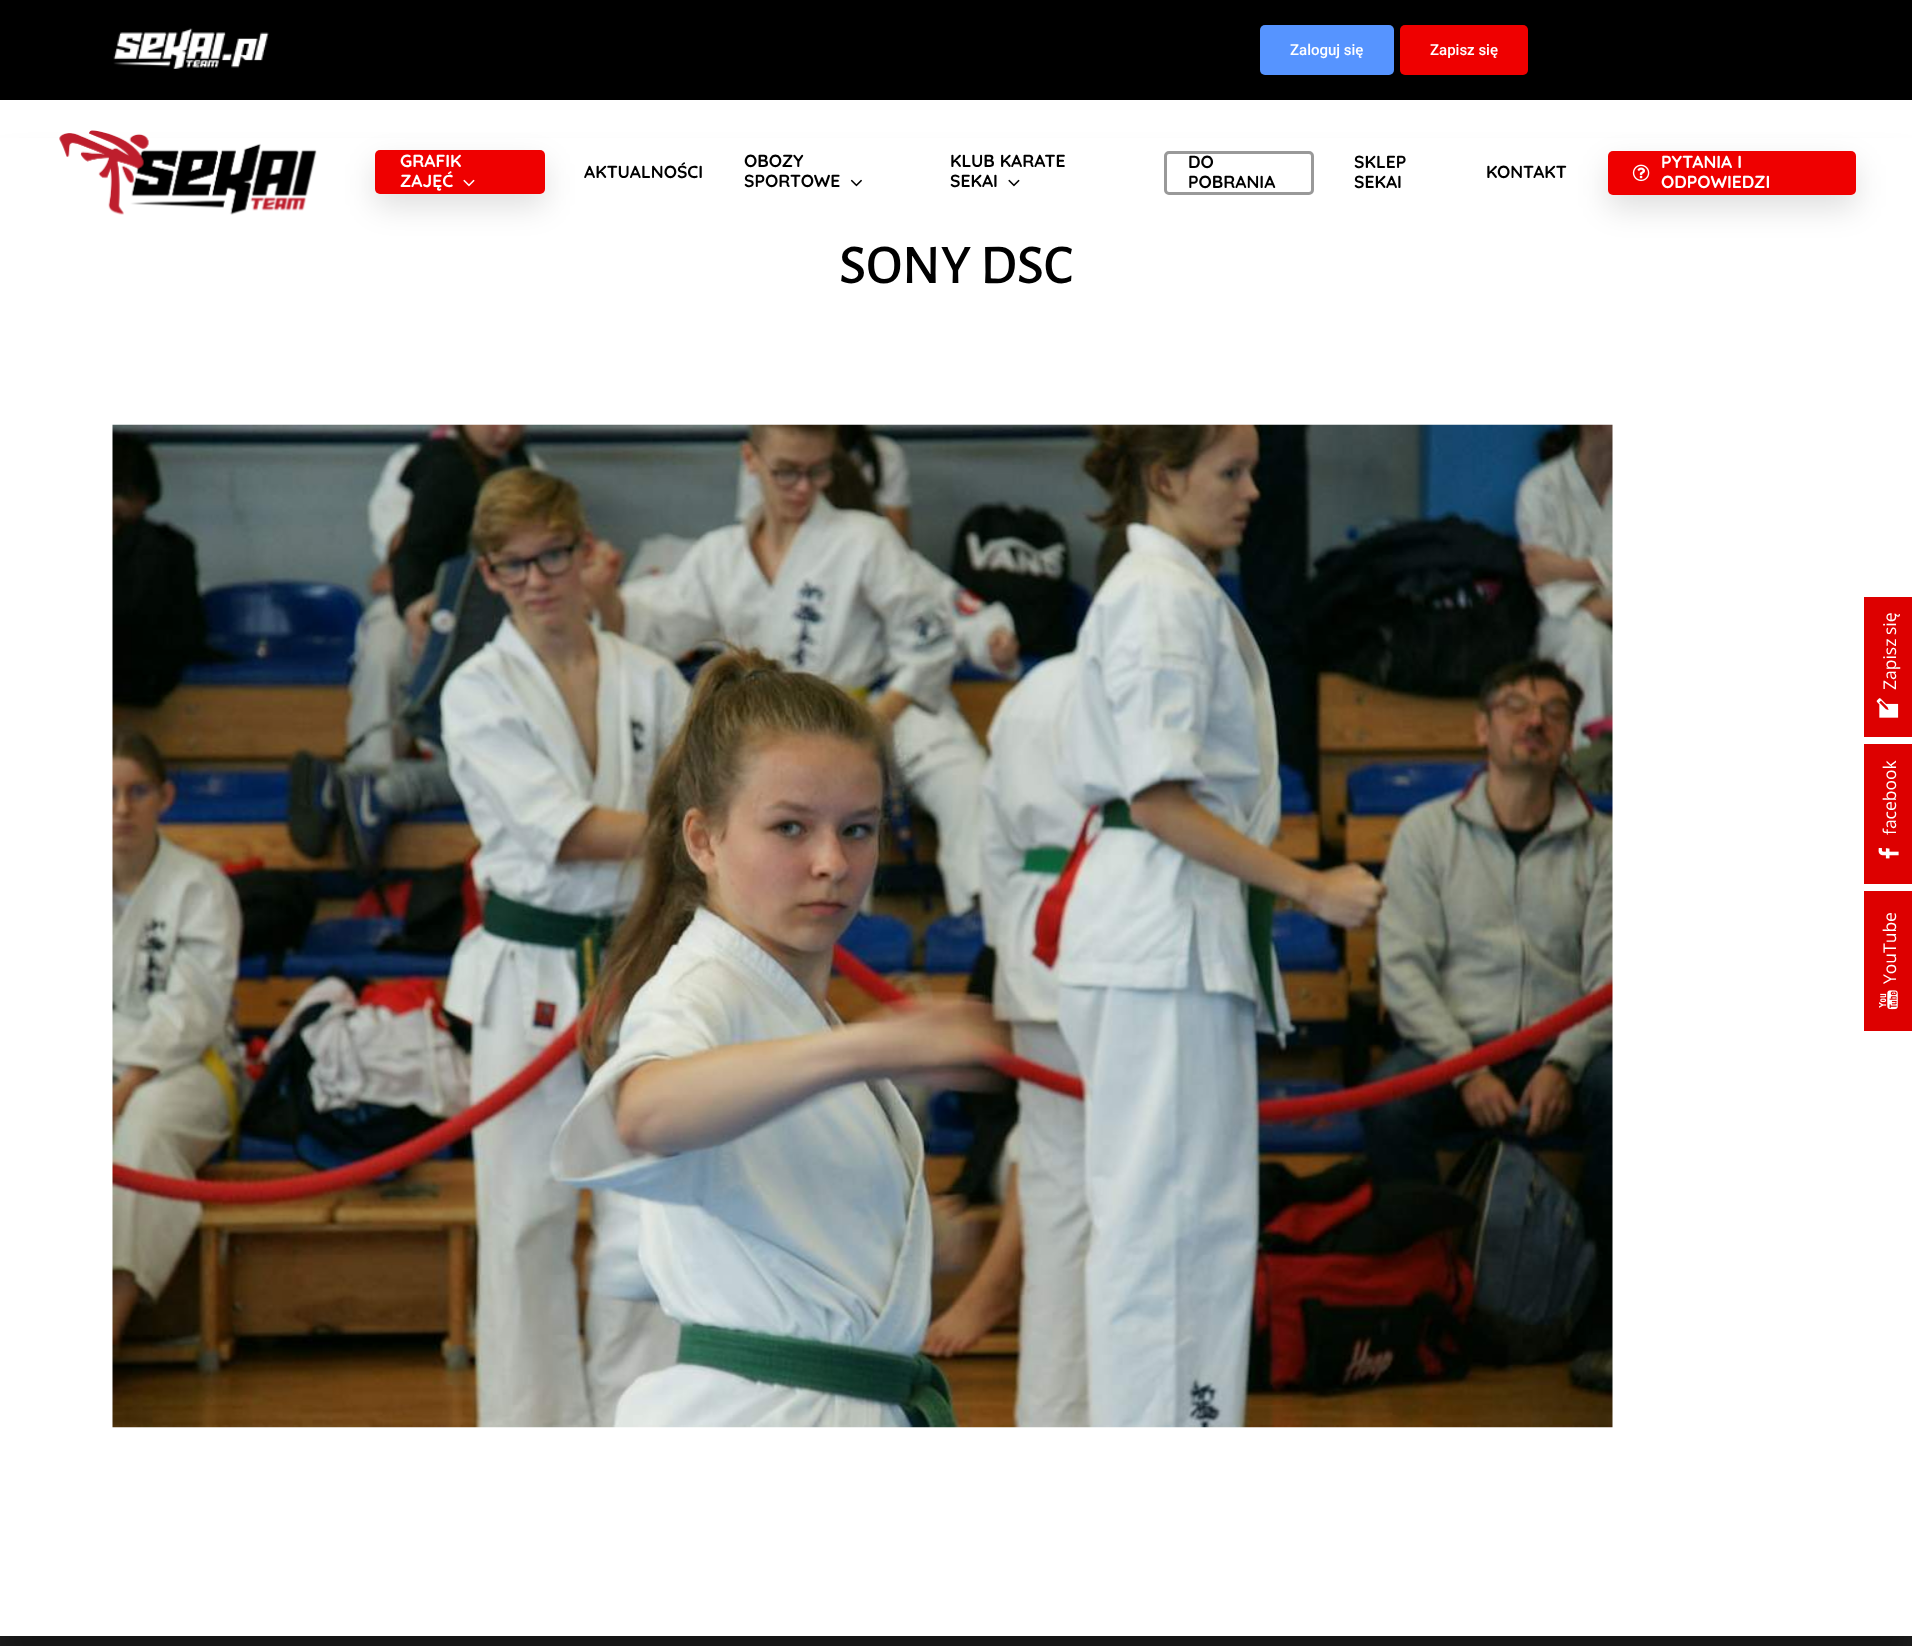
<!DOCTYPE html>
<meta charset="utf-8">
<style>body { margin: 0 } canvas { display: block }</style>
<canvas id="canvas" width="1912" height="1646"></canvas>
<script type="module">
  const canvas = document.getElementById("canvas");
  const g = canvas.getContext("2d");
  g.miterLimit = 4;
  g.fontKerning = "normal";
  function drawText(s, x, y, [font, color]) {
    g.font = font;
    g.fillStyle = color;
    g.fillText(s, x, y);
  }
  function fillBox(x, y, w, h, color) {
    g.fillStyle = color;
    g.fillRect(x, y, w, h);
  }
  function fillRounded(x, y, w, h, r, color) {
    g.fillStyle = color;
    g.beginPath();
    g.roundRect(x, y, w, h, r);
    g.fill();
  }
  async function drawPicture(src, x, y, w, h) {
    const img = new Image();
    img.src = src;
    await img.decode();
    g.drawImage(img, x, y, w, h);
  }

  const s1 = ["500 15px Roboto", "#FFFFFF"];
  const s2 = ["300 17.5px Quicksand", "#FFFFFF"];
  const s3 = ["300 17.5px Quicksand", "#000000"];
  const s4 = ["500 56.25px Alegreya Sans", "#000000"];

  fillBox(0, 0, 1912, 1646, "#FFFFFF");
  fillBox(0, 0, 1912, 100, "#000000");
  await drawPicture("pic1.png", 113, 28, 156, 41);
  fillRounded(1260, 25, 134, 50, 5, "#5694FF");
  drawText("Zaloguj się", 1290, 55, s1);
  fillRounded(1400, 25, 128, 50, 5, "#EF0000");
  drawText("Zapisz się", 1430, 55, s1);
  fillBox(0, 1636, 1912, 10, "#1F1F1F");
  g.fillStyle = "rgba(0, 0, 0, 0.3)";
  g.filter = "blur(15.5px)";
  g.beginPath();
  g.rect(3, 166, 1907, 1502);
  g.fill();
  g.filter = "none";
  fillBox(0, 138, 1912, 1498, "#FFFFFF");
  await drawPicture("pic2.png", 59, 130, 258, 85);
  g.fillStyle = "rgba(0, 0, 0, 0.13)";
  g.filter = "blur(15.5px)";
  g.beginPath();
  g.roundRect(375, 163, 170, 43, 5);
  g.fill();
  g.filter = "none";
  fillRounded(375, 150, 170, 44, 5, "#EF0000");
  drawText("GRAFIK", 400, 167, s2);
  drawText("ZAJĘĆ", 400, 187, s2);
  await drawPicture("pic3.png", 463, 179, 12, 8);
  drawText("AKTUALNOŚCI", 584, 178, s3);
  drawText("OBOZY", 744, 167, s3);
  drawText("SPORTOWE", 744, 187, s3);
  await drawPicture("pic4.png", 850, 179, 12, 8);
  drawText("KLUB KARATE", 950, 167, s3);
  drawText("SEKAI", 950, 187, s3);
  await drawPicture("pic5.png", 1008, 179, 12, 8);
  g.beginPath();
  g.roundRect(1165.5, 152.5, 147, 41, 3.5);
  g.strokeStyle = "#999999";
  g.lineWidth = 3;
  g.stroke();
  drawText("DO", 1188, 168, s3);
  drawText("POBRANIA", 1188, 188, s3);
  drawText("SKLEP", 1354, 168, s3);
  drawText("SEKAI", 1354, 188, s3);
  drawText("KONTAKT", 1486, 178, s3);
  g.fillStyle = "rgba(0, 0, 0, 0.13)";
  g.filter = "blur(15.5px)";
  g.beginPath();
  g.roundRect(1608, 164, 248, 44, 5);
  g.fill();
  g.filter = "none";
  fillRounded(1608, 151, 248, 44, 5, "#EF0000");
  await drawPicture("pic6.png", 1632, 164, 18, 18);
  drawText("PYTANIA I", 1661, 168, s2);
  drawText("ODPOWIEDZI", 1661, 188, s2);
  drawText("SONY DSC", 839, 283, s4);
  await drawPicture("pic7.png", 112, 424, 1501, 1004);
  fillBox(1864, 597, 48, 140, "#DD0000");
  g.wordSpacing = "-1px";
  g.font = "17.5px Open Sans";
  g.fillStyle = "#FFFFFF";
  g.save();
  g.translate(1896, 690);
  g.rotate(-90 * Math.PI / 180);
  g.fillText("Zapisz się", 0, 0);
  g.restore();
  await drawPicture("pic8.png", 1876, 698, 23, 20);
  fillBox(1864, 744, 48, 140, "#DD0000");
  g.wordSpacing = "0px";
  g.fillStyle = "#FFFFFF";
  g.save();
  g.translate(1896, 835);
  g.rotate(-90 * Math.PI / 180);
  g.fillText("facebook", 0, 0);
  g.restore();
  await drawPicture("pic9.png", 1878, 848, 21, 11);
  fillBox(1864, 891, 48, 140, "#DD0000");
  g.fillStyle = "#FFFFFF";
  g.save();
  g.translate(1896, 984);
  g.rotate(-90 * Math.PI / 180);
  g.fillText("YouTube", 0, 0);
  g.restore();
  await drawPicture("pic10.png", 1879, 990, 19, 20);
</script>
